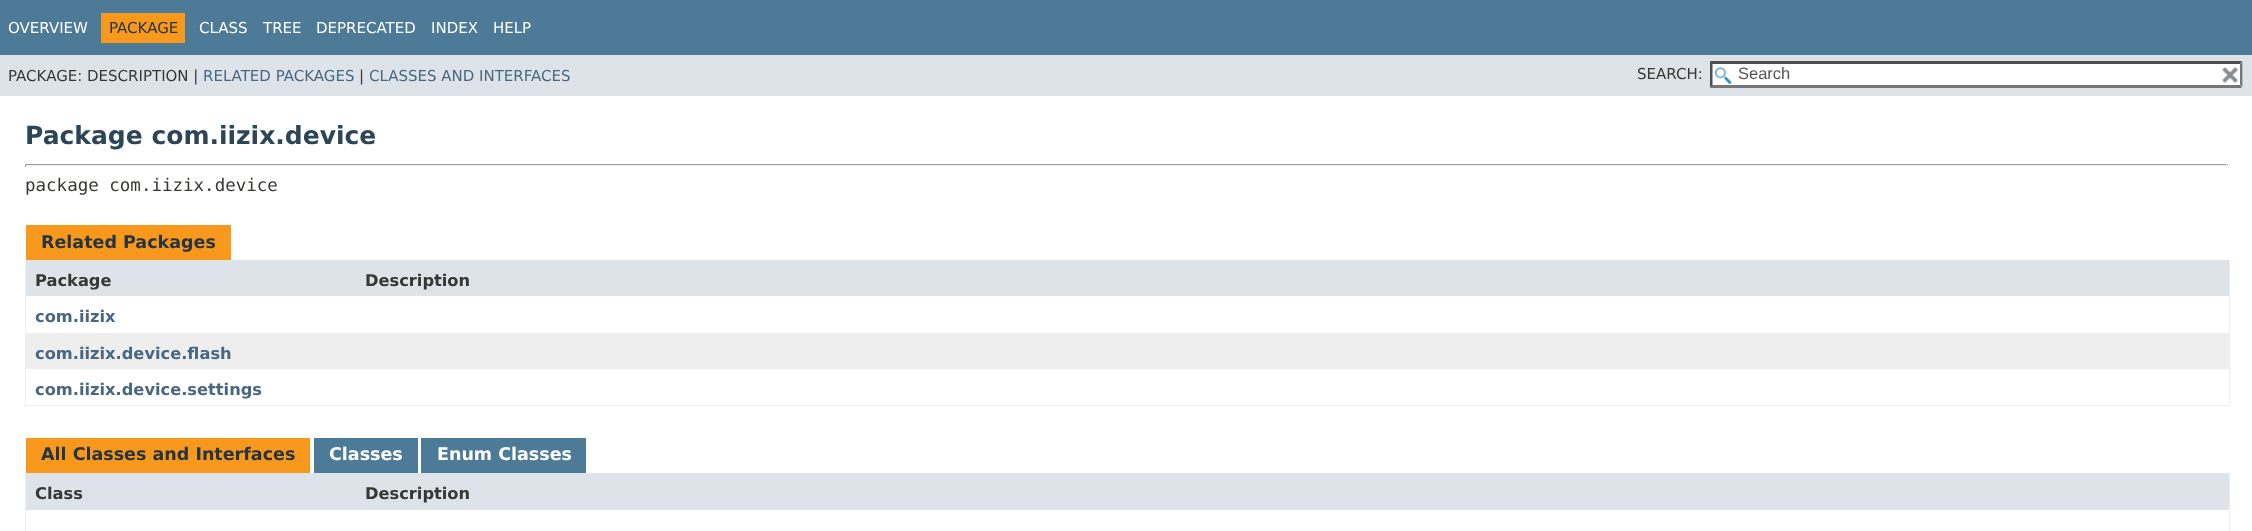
<!DOCTYPE html>
<meta charset="utf-8">
<style>body { margin: 0 } canvas { display: block }</style>
<canvas id="canvas" width="2252" height="531"></canvas>
<script type="module">
  const canvas = document.getElementById("canvas");
  const g = canvas.getContext("2d");
  g.miterLimit = 4;
  g.fontKerning = "normal";
  function drawText(s, x, y, [font, color]) {
    g.font = font;
    g.fillStyle = color;
    g.fillText(s, x, y);
  }
  function fillBox(x, y, w, h, color) {
    g.fillStyle = color;
    g.fillRect(x, y, w, h);
  }
  async function drawPicture(src, x, y, w, h) {
    const img = new Image();
    img.src = src;
    await img.decode();
    g.drawImage(img, x, y, w, h);
  }

  const s1 = ["15px DejaVu Sans", "#FFFFFF"];
  const s2 = ["15px DejaVu Sans", "#253441"];
  const s3 = ["15px DejaVu Sans", "#353833"];
  const s4 = ["15px DejaVu Sans", "#4A6782"];
  const s5 = ["16.5px Liberation Sans", "#545454"];
  const s6 = ["bold 25px DejaVu Sans", "#2C4557"];
  const s7 = ["17.5px DejaVu Sans Mono", "#353833"];
  const s8 = ["bold 17.5px DejaVu Sans", "#253441"];
  const s9 = ["bold 16.25px DejaVu Sans", "#353833"];
  const s10 = ["bold 16.25px DejaVu Sans", "#4A6782"];
  const s11 = ["bold 17.5px DejaVu Sans", "#FFFFFF"];

  fillBox(0, 0, 2252, 531, "#FFFFFF");
  fillBox(0, 0, 2252, 55, "#4D7A97");
  drawText("OVERVIEW", 8, 33, s1);
  fillBox(101, 13, 84, 30, "#F8981D");
  drawText("PACKAGE", 109, 33, s2);
  drawText("CLASS", 199, 33, s1);
  drawText("TREE", 263, 33, s1);
  drawText("DEPRECATED", 316, 33, s1);
  drawText("INDEX", 431, 33, s1);
  drawText("HELP", 493, 33, s1);
  fillBox(0, 55, 2252, 41, "#DEE3E9");
  drawText("PACKAGE: DESCRIPTION |", 8, 81, s3);
  drawText("RELATED PACKAGES", 203, 81, s4);
  drawText("|", 359, 81, s3);
  drawText("CLASSES AND INTERFACES", 369, 81, s4);
  drawText("SEARCH:", 1637, 79, s3);
  fillBox(1710, 61, 533, 27, "#FFFFFF");
  await drawPicture("pic1.png", 1715, 67, 17, 17);
  g.fillStyle = "#4F4F4F";
  g.beginPath();
  g.moveTo(1710, 61);
  g.lineTo(2242, 61);
  g.lineTo(2240, 64);
  g.lineTo(1712, 64);
  g.closePath();
  g.fill();
  g.fillStyle = "#767676";
  g.beginPath();
  g.moveTo(2242.5, 61);
  g.lineTo(2242.5, 87.5);
  g.lineTo(2240, 85);
  g.lineTo(2240, 64);
  g.closePath();
  g.fill();
  g.beginPath();
  g.moveTo(2242, 88);
  g.lineTo(1710, 88);
  g.lineTo(1712, 85);
  g.lineTo(2240, 85);
  g.closePath();
  g.fill();
  g.fillStyle = "#4F4F4F";
  g.beginPath();
  g.moveTo(1710, 87.5);
  g.lineTo(1710, 61);
  g.lineTo(1712.5, 64);
  g.lineTo(1712.5, 85);
  g.closePath();
  g.fill();
  drawText("Search", 1738, 79, s5);
  await drawPicture("pic2.png", 2222, 67, 16, 16);
  drawText("Package com.iizix.device", 25, 144, s6);
  fillBox(25, 164, 2203, 1, "#9F9F9F");
  fillBox(2226, 164, 1, 3, "#EEEEEE");
  fillBox(25, 165, 2203, 1, "#EEEEEE");
  fillBox(25, 164, 1, 3, "#9F9F9F");
  drawText("package com.iizix.device", 25, 191, s7);
  fillBox(26, 225, 205, 35, "#F8981D");
  drawText("Related Packages", 41, 248, s8);
  fillBox(2229, 260, 1, 146, "#EEEEEE");
  fillBox(25, 405, 2205, 1, "#EEEEEE");
  fillBox(25, 260, 1, 146, "#EEEEEE");
  fillBox(26, 260, 2203, 36, "#DEE3E9");
  drawText("Package", 35, 286, s9);
  drawText("Description", 365, 286, s9);
  drawText("com.iizix", 35, 322, s10);
  fillBox(26, 333, 2203, 36, "#EEEEEF");
  drawText("com.iizix.device.flash", 35, 359, s10);
  drawText("com.iizix.device.settings", 35, 395, s10);
  fillBox(26, 438, 284, 35, "#F8981D");
  drawText("All Classes and Interfaces", 41, 460, s8);
  fillBox(314, 438, 104, 35, "#4D7A97");
  drawText("Classes", 329, 460, s11);
  fillBox(421, 438, 165, 35, "#4D7A97");
  drawText("Enum Classes", 437, 460, s11);
  fillBox(2229, 473, 1, 58, "#EEEEEE");
  fillBox(25, 473, 1, 58, "#EEEEEE");
  fillBox(26, 473, 2203, 37, "#DEE3E9");
  drawText("Class", 35, 499, s9);
  drawText("Description", 365, 499, s9);
</script>
